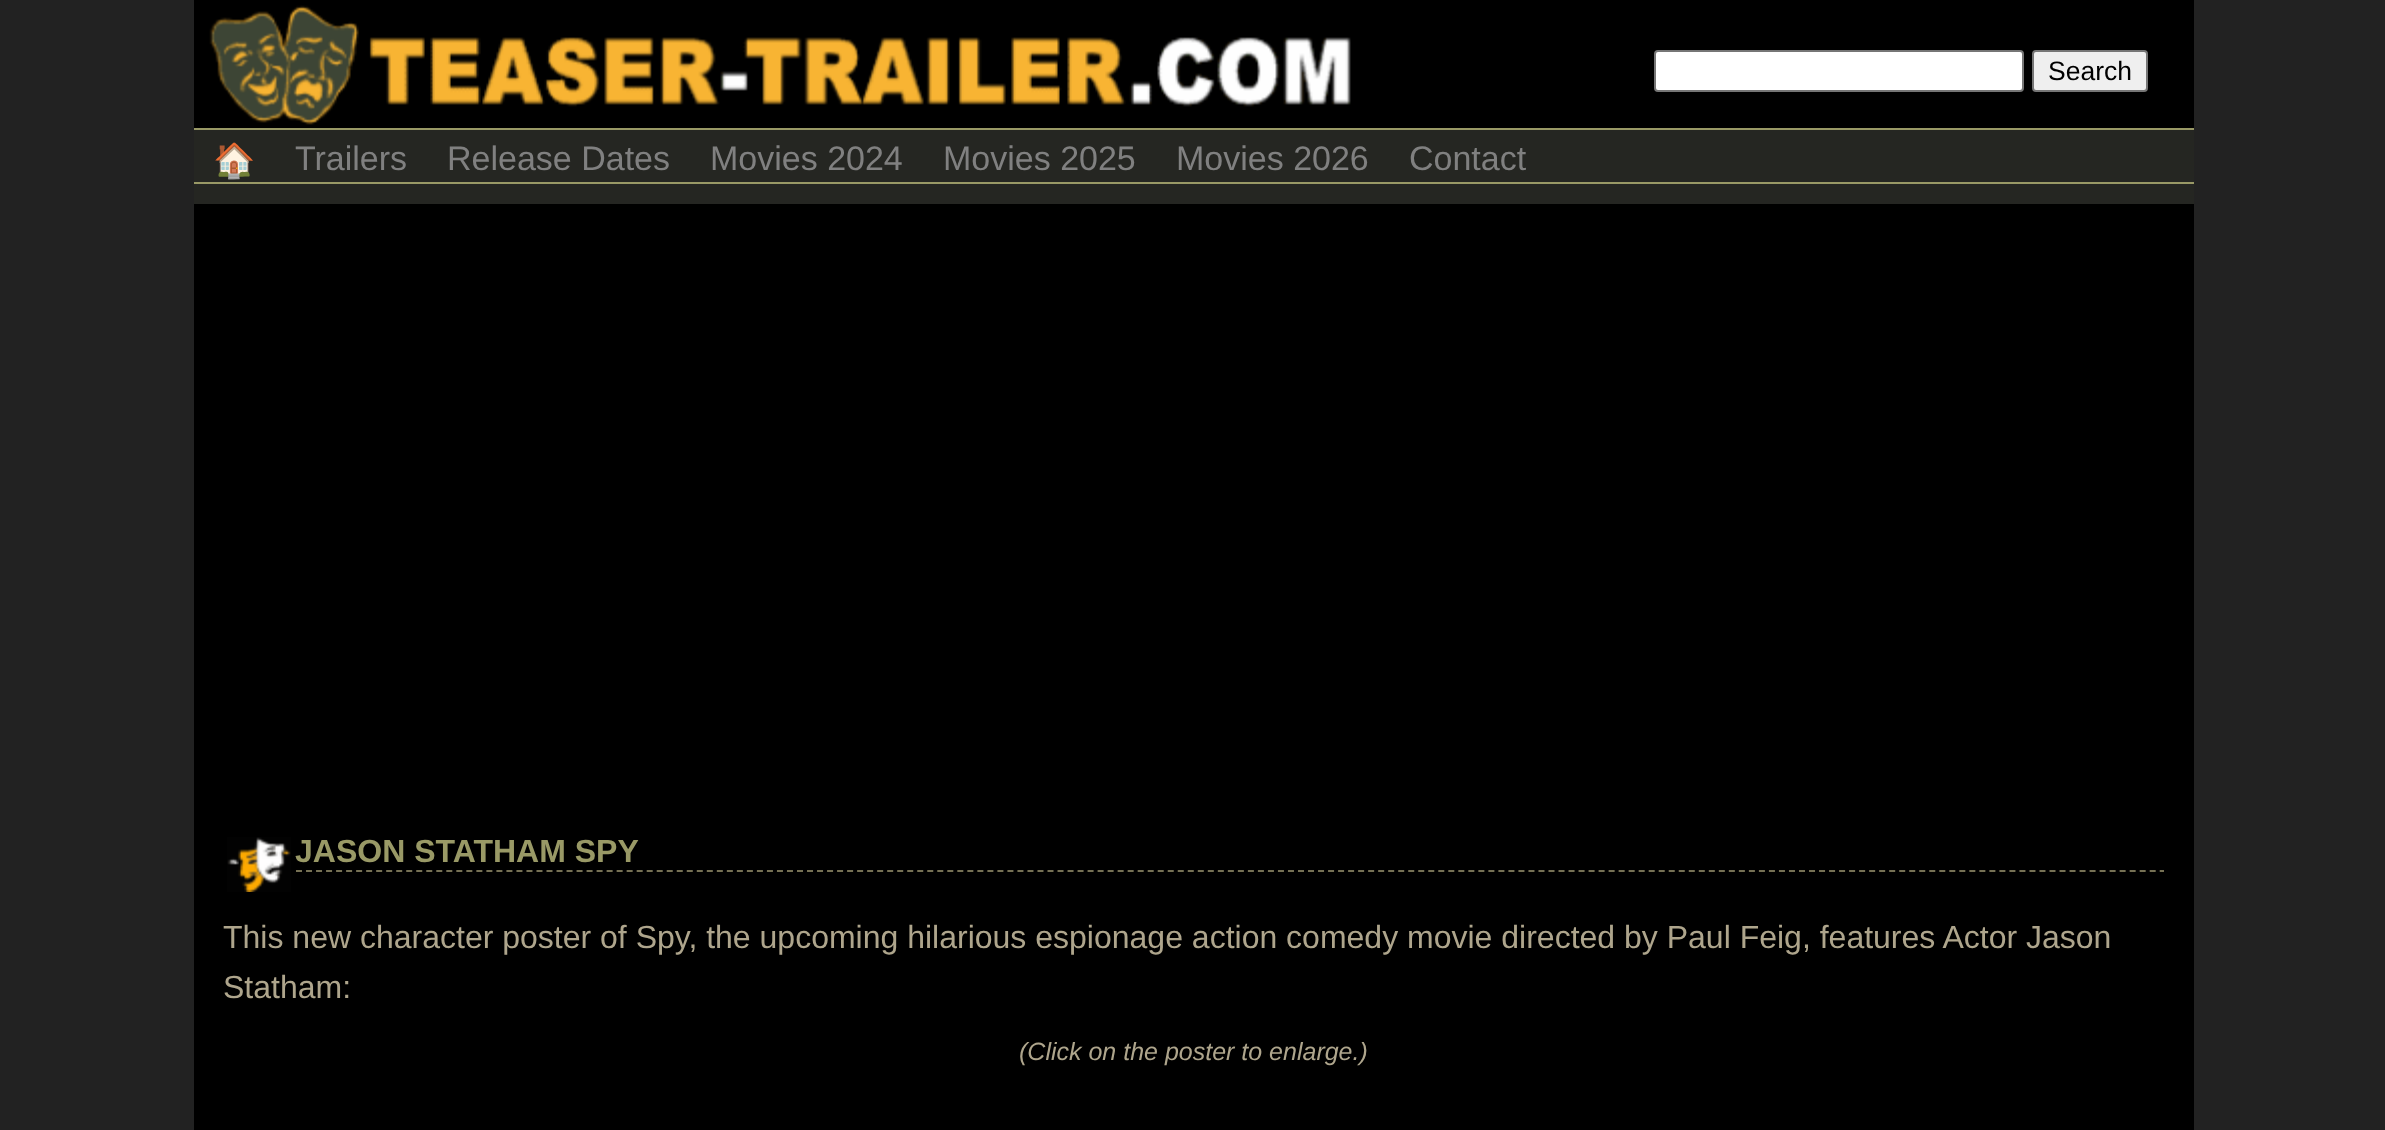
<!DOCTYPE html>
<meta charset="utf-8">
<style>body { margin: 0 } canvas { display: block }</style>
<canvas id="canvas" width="2385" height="1130"></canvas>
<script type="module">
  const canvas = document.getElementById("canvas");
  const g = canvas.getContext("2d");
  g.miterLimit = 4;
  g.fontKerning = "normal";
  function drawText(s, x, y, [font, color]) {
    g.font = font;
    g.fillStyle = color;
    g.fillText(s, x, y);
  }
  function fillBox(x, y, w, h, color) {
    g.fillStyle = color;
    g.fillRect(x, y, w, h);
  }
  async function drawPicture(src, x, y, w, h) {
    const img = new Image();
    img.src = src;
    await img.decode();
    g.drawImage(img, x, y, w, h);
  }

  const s1 = ["26.5px Liberation Sans", "#000000"];
  const s2 = ["34px Noto Color Emoji", "#808080"];
  const s3 = ["34px Liberation Sans", "#808080"];
  const s4 = ["bold 32px Liberation Sans", "#999966"];
  const s5 = ["32px Liberation Sans", "#AEA58C"];
  const s6 = ["italic 25px Liberation Sans", "#AEA58C"];

  fillBox(0, 0, 2385, 1130, "#222222");
  fillBox(194, 130, 2000, 74, "#252622");
  fillBox(194, 0, 2000, 128, "#000000");
  await drawPicture("pic1.png", 209, 5, 1142, 120);
  g.fillStyle = "#FFFFFF";
  g.beginPath();
  g.roundRect(1655, 51, 368, 40, 3);
  g.fill();
  g.strokeStyle = "#767676";
  g.lineWidth = 2;
  g.stroke();
  g.fillStyle = "#EFEFEF";
  g.beginPath();
  g.roundRect(2033, 51, 114, 40, 3);
  g.fill();
  g.stroke();
  drawText("Search", 2048, 80, s1);
  fillBox(194, 128, 2000, 2, "#999966");
  fillBox(194, 182, 2000, 2, "#999966");
  drawText("🏠", 213, 172, s2);
  drawText("Trailers", 295, 170, s3);
  drawText("Release Dates", 447, 170, s3);
  drawText("Movies 2024", 710, 170, s3);
  drawText("Movies 2025", 943, 170, s3);
  drawText("Movies 2026", 1176, 170, s3);
  drawText("Contact", 1409, 170, s3);
  fillBox(194, 204, 2000, 926, "#000000");
  await drawPicture("pic2.png", 227, 837, 64, 55);
  g.beginPath();
  g.moveTo(296, 871);
  g.lineTo(2164, 871);
  g.strokeStyle = "#767154";
  g.setLineDash([6, 4.02]);
  g.stroke();
  drawText("JASON STATHAM SPY", 295, 862, s4);
  drawText("This new character poster of Spy, the upcoming hilarious espionage action comedy movie directed by Paul Feig, features Actor Jason", 223, 948, s5);
  drawText("Statham:", 223, 998, s5);
  drawText("(Click on the poster to enlarge.)", 1019, 1060, s6);
</script>
